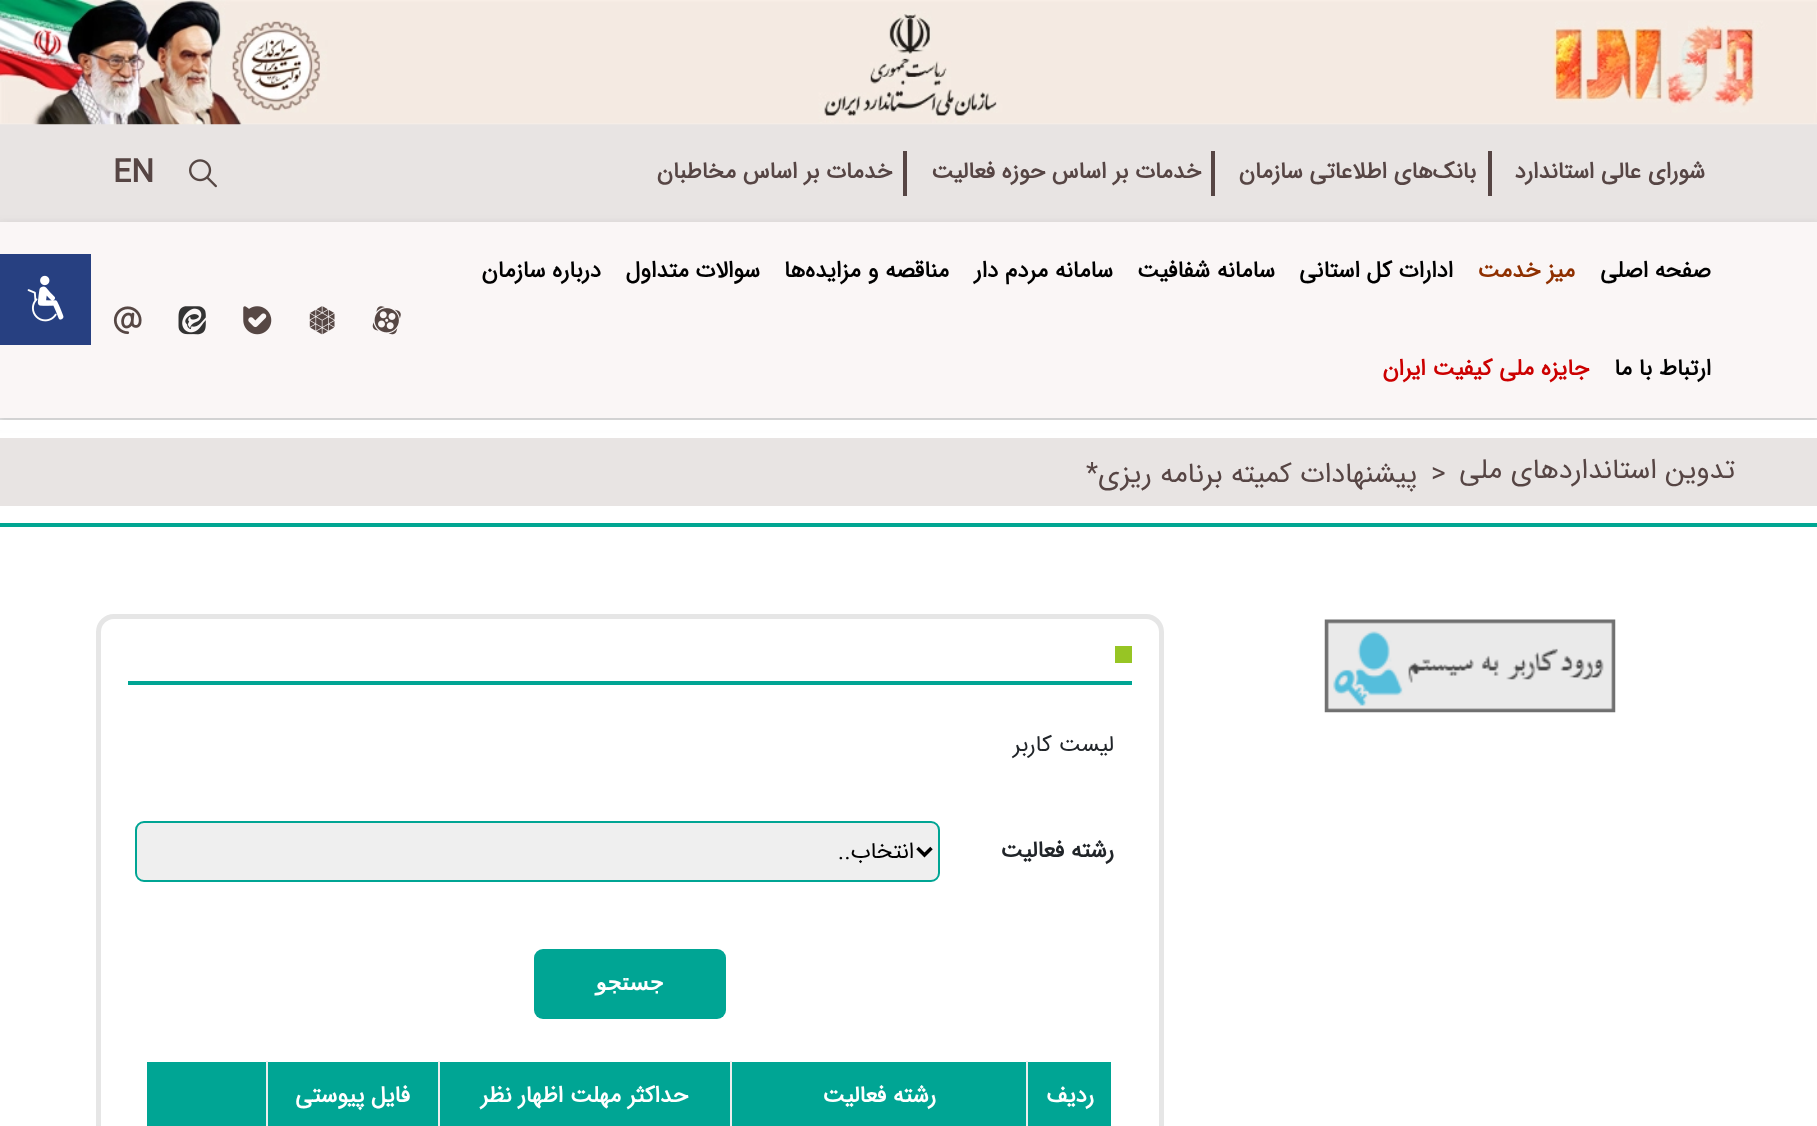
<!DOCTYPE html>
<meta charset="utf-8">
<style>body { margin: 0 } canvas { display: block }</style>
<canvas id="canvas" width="1817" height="1126"></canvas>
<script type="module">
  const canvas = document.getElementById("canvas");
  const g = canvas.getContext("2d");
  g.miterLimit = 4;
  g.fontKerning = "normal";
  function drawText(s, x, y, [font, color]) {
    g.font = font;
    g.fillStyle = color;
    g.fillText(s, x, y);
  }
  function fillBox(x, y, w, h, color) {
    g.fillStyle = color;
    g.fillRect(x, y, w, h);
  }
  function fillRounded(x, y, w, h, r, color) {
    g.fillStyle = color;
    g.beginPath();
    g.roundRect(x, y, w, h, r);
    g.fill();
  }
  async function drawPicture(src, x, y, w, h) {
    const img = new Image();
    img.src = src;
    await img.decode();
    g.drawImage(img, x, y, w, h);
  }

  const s1 = ["bold 22.75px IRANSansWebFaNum", "#564544"];
  const s2 = ["bold 32px IRANSansWebFaNum", "#564544"];
  const s3 = ["bold 22.75px IRANSansWebFaNum", "#000000"];
  const s4 = ["bold 22.75px IRANSansWebFaNum", "#8F3000"];
  const s5 = ["bold 22.75px IRANSansWebFaNum", "#CC0000"];
  const s6 = ["28px IRANSansWebFaNum", "#564544"];
  const s7 = ["22.75px IRANSansWebFaNum", "#212529"];
  const s8 = ["bold 22.75px IRANSansWebFaNum", "#212529"];
  const s9 = ["22.75px IRANSansWebFaNum", "#000000"];
  const s10 = ["bold 23px DejaVu Sans", "#FFFFFF"];
  const s11 = ["bold 22.75px IRANSansWebFaNum", "#FFFFFF"];

  fillBox(0, 0, 1817, 1126, "#FFFFFF");
  fillBox(0, 418, 1817, 2, "#EBEBEB");
  fillBox(0, 124, 1817, 98, "#E8E4E3");
  await drawPicture("pic1.png", 0, 0, 1817, 125);
  g.direction = "rtl";
  drawText("شورای عالی استاندارد", 1705, 178, s1);
  fillBox(1488, 151, 4, 45, "#564544");
  drawText("بانک‌های اطلاعاتی‌ سازمان", 1476, 178, s1);
  fillBox(1211, 151, 4, 45, "#564544");
  drawText("خدمات بر اساس حوزه فعالیت", 1201, 178, s1);
  fillBox(903, 151, 4, 45, "#564544");
  drawText("خدمات بر اساس مخاطبان", 892, 178, s1);
  await drawPicture("pic2.png", 189, 159, 28, 29);
  g.direction = "ltr";
  drawText("EN", 113, 182, s2);
  g.fillStyle = "rgba(64, 60, 67, 0.16)";
  g.filter = "blur(4.5px)";
  g.beginPath();
  g.rect(-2, 224, 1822, 200);
  g.fill();
  g.filter = "none";
  fillBox(0, 222, 1817, 196, "#FAF6F6");
  g.direction = "rtl";
  drawText("صفحه اصلی", 1711, 277, s3);
  drawText("میز خدمت", 1575, 277, s4);
  drawText("ادارات کل استانی", 1453, 277, s3);
  drawText("سامانه شفافیت", 1275, 277, s3);
  drawText("سامانه مردم دار", 1113, 277, s3);
  drawText("مناقصه و مزایده‌ها", 949, 277, s3);
  drawText("سوالات متداول", 760, 277, s3);
  drawText("درباره سازمان", 601, 277, s3);
  drawText("ارتباط با ما", 1711, 375, s3);
  drawText("جایزه ملی کیفیت ایران", 1589, 375, s5);
  await drawPicture("pic3.png", 372, 306, 29, 29);
  await drawPicture("pic4.png", 309, 306, 26, 29);
  await drawPicture("pic5.png", 243, 306, 29, 29);
  await drawPicture("pic6.png", 178, 306, 28, 29);
  await drawPicture("pic7.png", 113, 306, 29, 29);
  fillBox(0, 254, 91, 91, "#274081");
  await drawPicture("pic8.png", 27, 275, 37, 47);
  fillBox(0, 420, 1817, 10, "#FFFFFF");
  fillBox(0, 523, 1817, 4, "#00A692");
  fillBox(0, 438, 1817, 68, "#E8E4E3");
  drawText("تدوین استانداردهای ملی", 1735, 478, s6);
  g.direction = "ltr";
  drawText(">", 1431, 482, s6);
  g.direction = "rtl";
  drawText("پیشنهادات کمیته برنامه ریزی*", 1417, 482, s6);
  await drawPicture("pic9.png", 1324, 619, 292, 94);
  g.beginPath();
  g.roundRect(98.5, 616.5, 1063, 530, 15.5);
  g.strokeStyle = "#E6E6E6";
  g.lineWidth = 5;
  g.stroke();
  fillBox(128, 681, 1004, 4, "#00A594");
  fillBox(1115, 646, 17, 17, "#97C524");
  drawText("لیست کاربر", 1114, 751, s7);
  drawText("رشته فعالیت", 1114, 857, s8);
  g.fillStyle = "#EFEFEF";
  g.beginPath();
  g.roundRect(136, 822, 803, 59, 8);
  g.fill();
  g.strokeStyle = "#00A594";
  g.lineWidth = 2;
  g.stroke();
  g.beginPath();
  g.moveTo(917.5, 848);
  g.lineTo(924.5, 855);
  g.lineTo(931.5, 848);
  g.strokeStyle = "#000000";
  g.lineWidth = 3.5;
  g.stroke();
  drawText("انتخاب..", 914, 858, s9);
  fillRounded(534, 949, 192, 70, 9, "#00A594");
  drawText("جستجو", 664, 990, s10);
  fillBox(147, 1062, 964, 64, "#00A594");
  drawText("رديف", 1094, 1102, s11);
  fillBox(1026, 1061, 2, 65, "#EEEEEE");
  drawText("رشته فعالیت", 936, 1102, s11);
  fillBox(730, 1061, 2, 65, "#EEEEEE");
  drawText("حداکثر مهلت اظهار نظر", 688, 1102, s11);
  fillBox(438, 1061, 2, 65, "#EEEEEE");
  drawText("فایل پیوستی", 410, 1102, s11);
  fillBox(266, 1061, 2, 65, "#EEEEEE");
</script>
